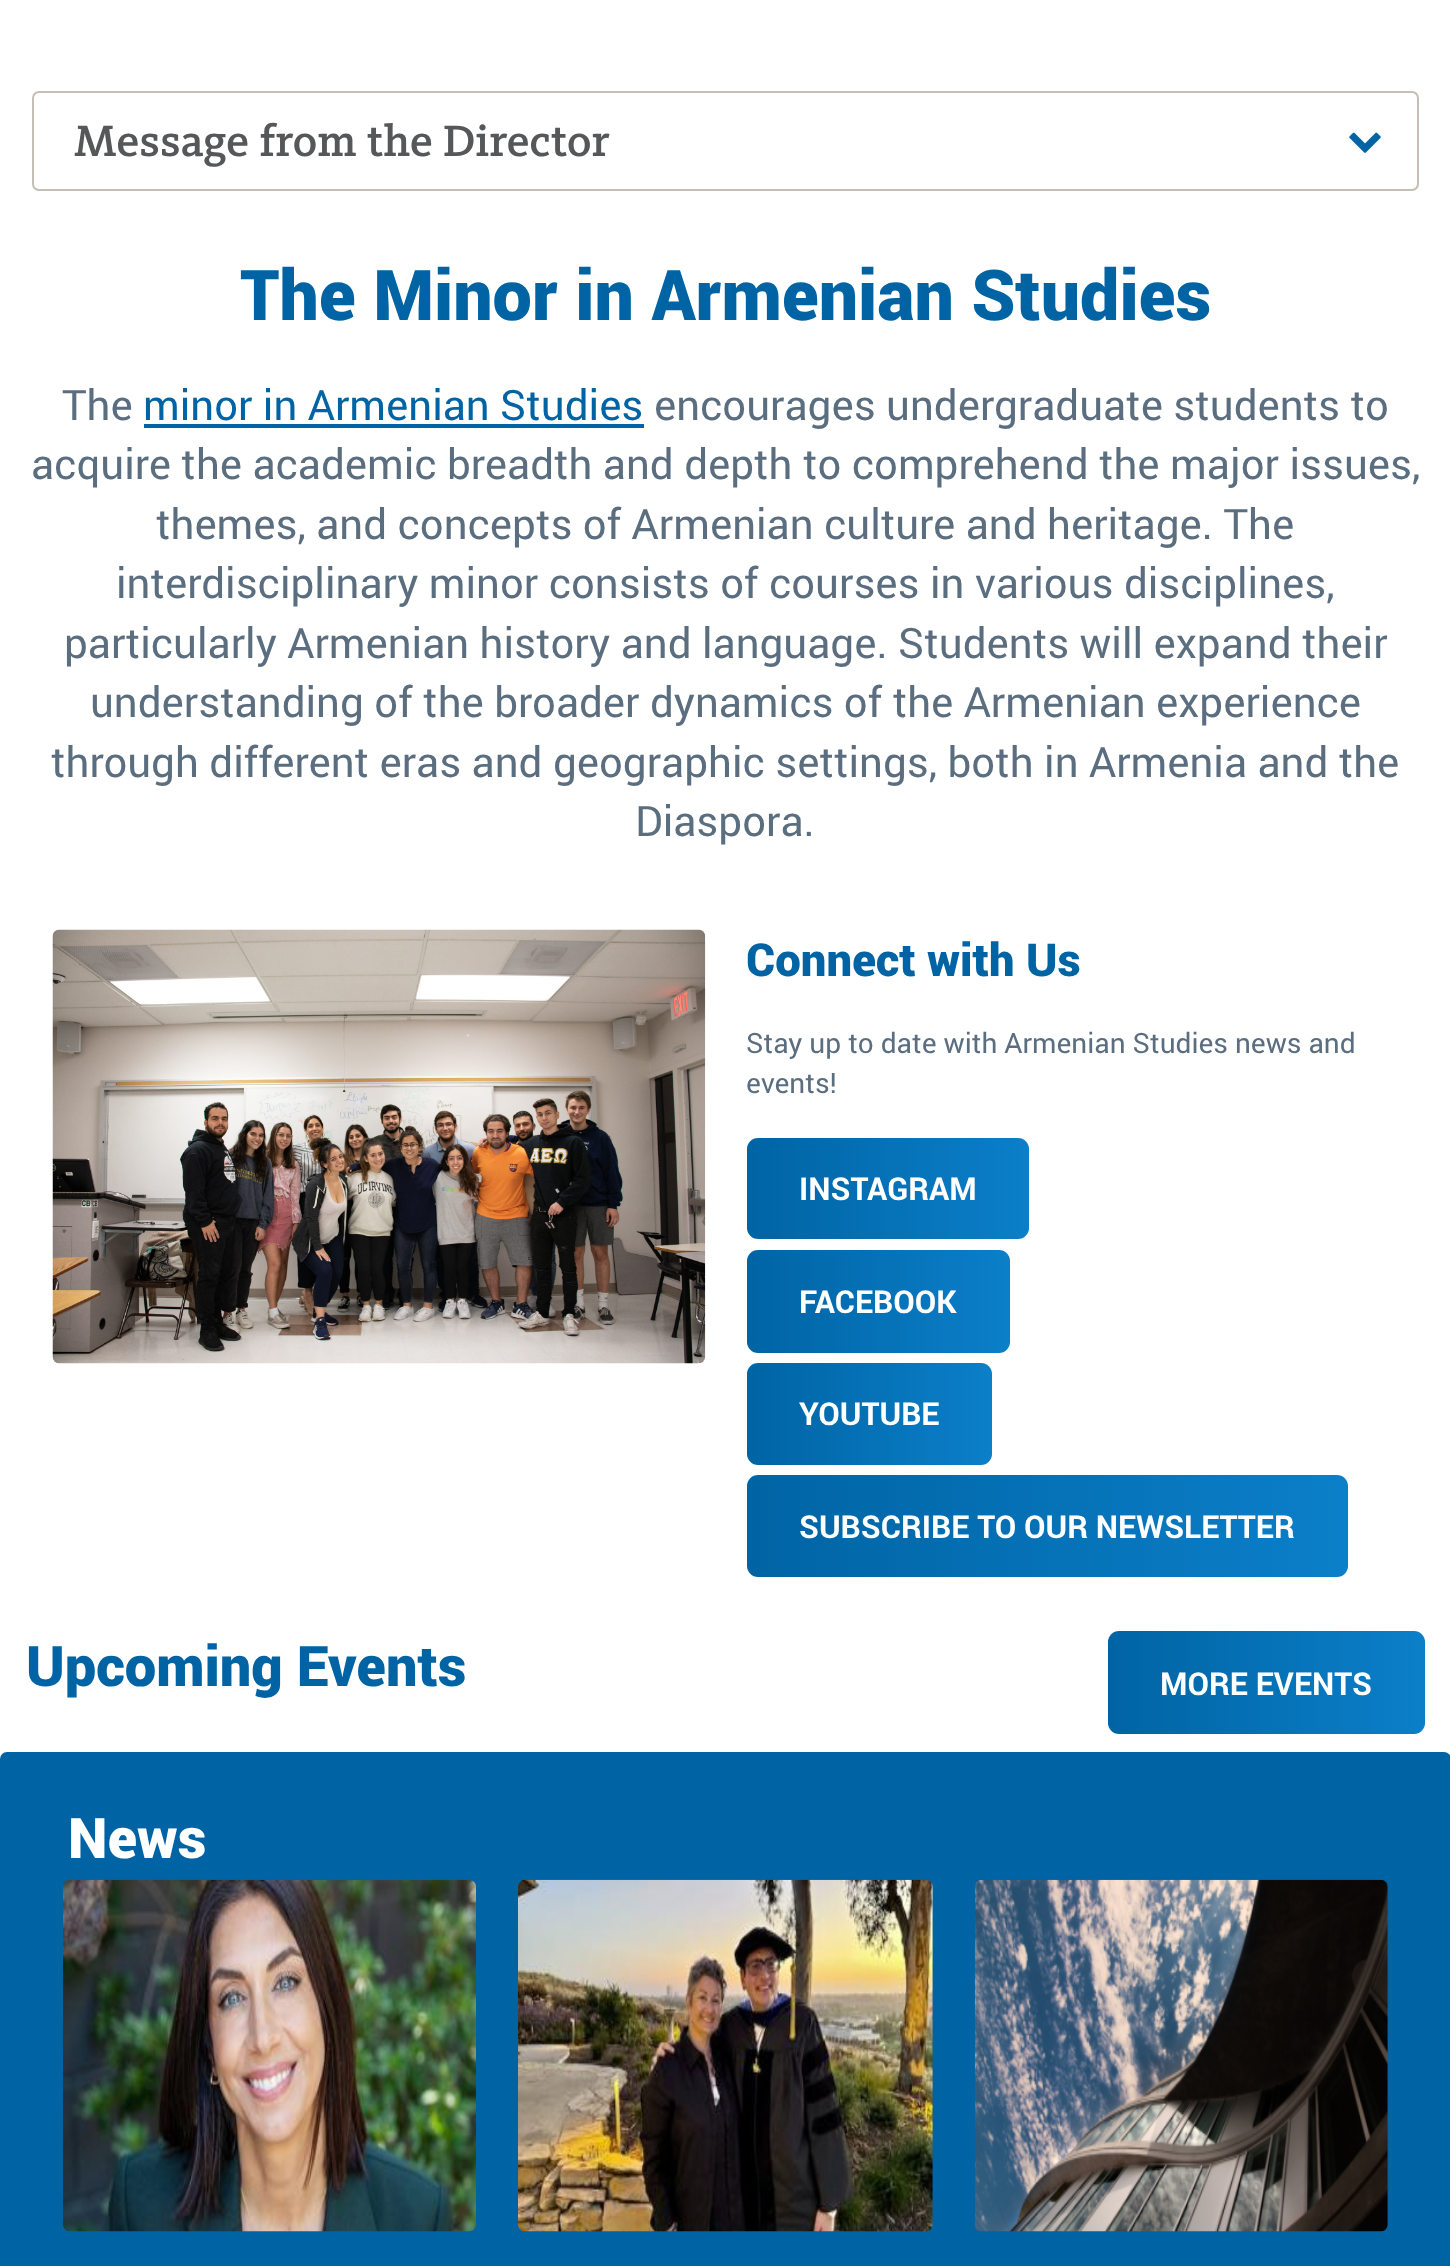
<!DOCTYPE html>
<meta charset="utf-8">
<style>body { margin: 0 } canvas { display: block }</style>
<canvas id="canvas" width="1450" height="2266"></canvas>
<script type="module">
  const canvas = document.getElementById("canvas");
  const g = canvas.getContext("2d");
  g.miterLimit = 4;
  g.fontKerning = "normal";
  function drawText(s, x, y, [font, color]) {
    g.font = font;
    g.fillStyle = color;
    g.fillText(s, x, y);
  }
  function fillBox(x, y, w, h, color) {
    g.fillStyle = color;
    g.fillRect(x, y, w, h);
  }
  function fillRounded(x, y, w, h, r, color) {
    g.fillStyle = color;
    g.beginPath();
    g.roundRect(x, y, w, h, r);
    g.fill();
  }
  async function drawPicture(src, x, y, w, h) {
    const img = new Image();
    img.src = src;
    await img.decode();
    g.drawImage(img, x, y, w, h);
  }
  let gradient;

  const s1 = ["500 45.5px 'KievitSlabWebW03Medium'", "#555759"];
  const s2 = ["900 70px Roboto", "#0064A4"];
  const s3 = ["42px Roboto", "#5B6E80"];
  const s4 = ["42px Roboto", "#0064A4"];
  const s5 = ["900 45.5px Roboto", "#0064A4"];
  const s6 = ["28px Roboto", "#5B6E80"];
  const s7 = ["bold 31.5px Roboto", "#FFFFFF"];
  const s8 = ["900 56px Roboto", "#0064A4"];
  const s9 = ["900 56px Roboto", "#FFFFFF"];

  fillBox(0, 0, 1450, 2266, "#FFFFFF");
  g.beginPath();
  g.roundRect(33, 92, 1385, 98, 6);
  g.strokeStyle = "#C6BEB5";
  g.lineWidth = 2;
  g.stroke();
  drawText("Message from the Director", 74, 156, s1);
  await drawPicture("pic1.png", 1349, 132, 32, 21);
  drawText("The Minor in Armenian Studies", 240, 320, s2);
  drawText("The", 62, 420, s3);
  drawText("minor in Armenian Studies", 143, 420, s4);
  fillBox(144, 424, 500, 4, "#0064A4");
  drawText("encourages undergraduate students to", 654, 420, s3);
  drawText("acquire the academic breadth and depth to comprehend the major issues,", 31, 479, s3);
  drawText("themes, and concepts of Armenian culture and heritage. The", 156, 539, s3);
  drawText("interdisciplinary minor consists of courses in various disciplines,", 116, 598, s3);
  drawText("particularly Armenian history and language. Students will expand their", 64, 658, s3);
  drawText("understanding of the broader dynamics of the Armenian experience", 90, 717, s3);
  drawText("through different eras and geographic settings, both in Armenia and the", 51, 777, s3);
  drawText("Diaspora.", 635, 836, s3);
  await drawPicture("pic2.png", 52, 929, 654, 435);
  drawText("Connect with Us", 746, 976, s5);
  drawText("Stay up to date with Armenian Studies news and", 746, 1053, s6);
  drawText("events!", 746, 1093, s6);
  gradient = g.createLinearGradient(747, 1188, 1029, 1188);
  gradient.addColorStop(0, "#0064A4");
  gradient.addColorStop(1, "#0B7FC9");
  g.fillStyle = gradient;
  g.beginPath();
  g.roundRect(747, 1138, 282, 101, 11);
  g.fill();
  drawText("INSTAGRAM", 799, 1200, s7);
  gradient = g.createLinearGradient(747, 1301, 1010, 1301);
  gradient.addColorStop(0, "#0064A4");
  gradient.addColorStop(1, "#0B7FC9");
  g.fillStyle = gradient;
  g.beginPath();
  g.roundRect(747, 1250, 263, 103, 11);
  g.fill();
  drawText("FACEBOOK", 799, 1313, s7);
  gradient = g.createLinearGradient(747, 1414, 992, 1414);
  gradient.addColorStop(0, "#0064A4");
  gradient.addColorStop(1, "#0B7FC9");
  g.fillStyle = gradient;
  g.beginPath();
  g.roundRect(747, 1363, 245, 102, 11);
  g.fill();
  drawText("YOUTUBE", 799, 1425, s7);
  gradient = g.createLinearGradient(747, 1526, 1348, 1526);
  gradient.addColorStop(0, "#0064A4");
  gradient.addColorStop(1, "#0B7FC9");
  g.fillStyle = gradient;
  g.beginPath();
  g.roundRect(747, 1475, 601, 102, 11);
  g.fill();
  drawText("SUBSCRIBE TO OUR NEWSLETTER", 799, 1538, s7);
  drawText("Upcoming Events", 26, 1686, s8);
  gradient = g.createLinearGradient(1108, 1683, 1425, 1683);
  gradient.addColorStop(0, "#0064A4");
  gradient.addColorStop(1, "#0B7FC9");
  g.fillStyle = gradient;
  g.beginPath();
  g.roundRect(1108, 1631, 317, 103, 11);
  g.fill();
  drawText("MORE EVENTS", 1160, 1695, s7);
  fillRounded(0, 1752, 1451, 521, 7, "#0064A4");
  drawText("News", 68, 1858, s9);
  await drawPicture("pic3.png", 63, 1879, 413, 353);
  await drawPicture("pic4.png", 518, 1879, 415, 353);
  await drawPicture("pic5.png", 974, 1879, 414, 353);
</script>
